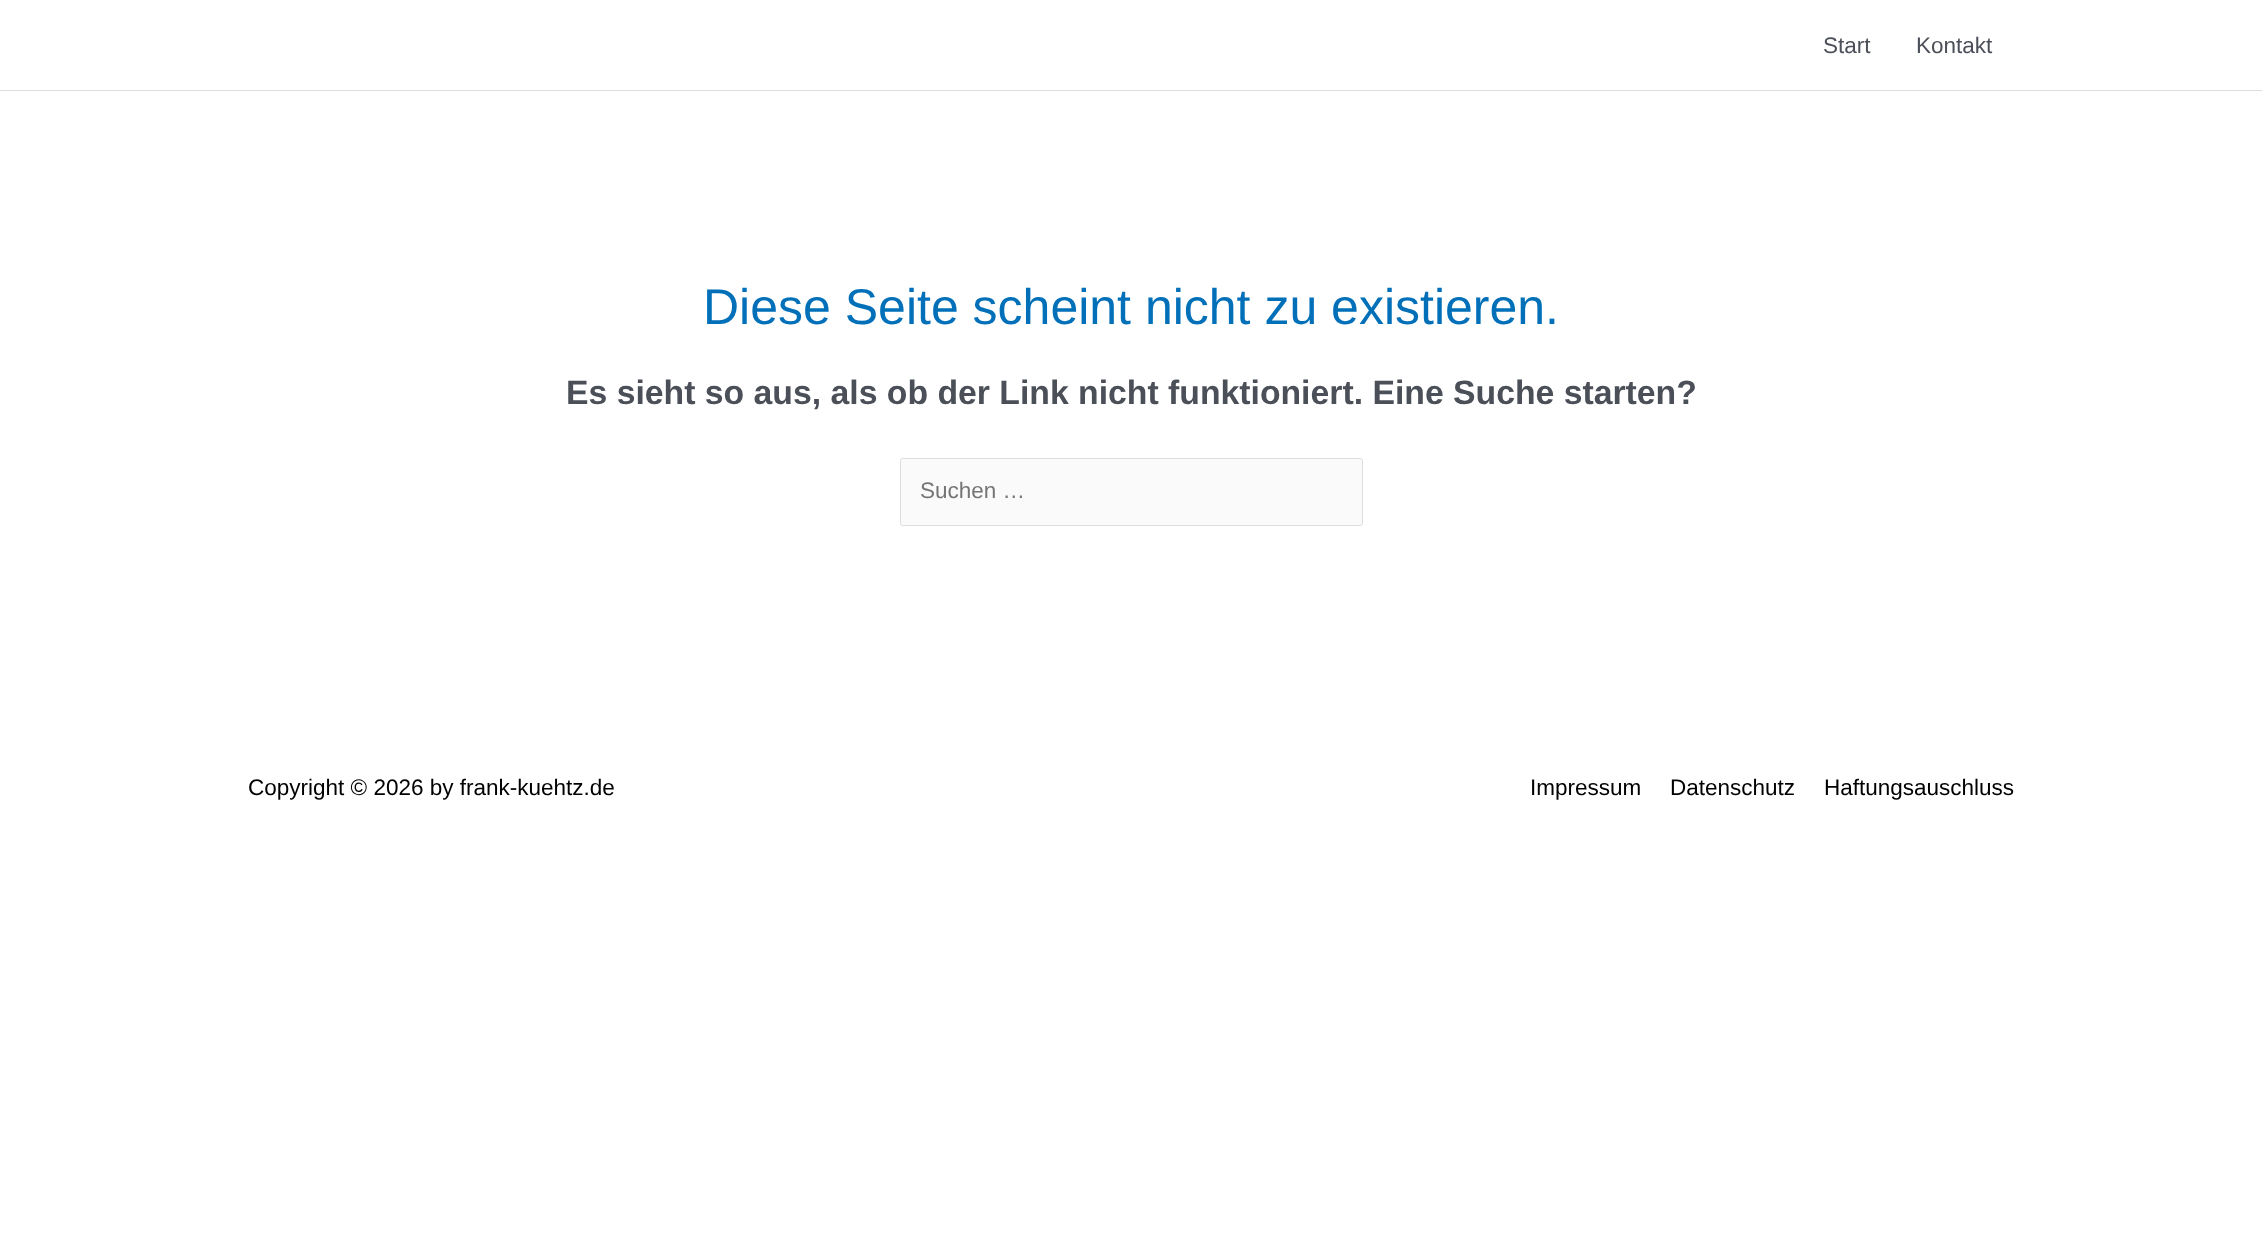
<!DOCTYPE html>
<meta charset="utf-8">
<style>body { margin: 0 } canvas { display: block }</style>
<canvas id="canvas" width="2262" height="1246"></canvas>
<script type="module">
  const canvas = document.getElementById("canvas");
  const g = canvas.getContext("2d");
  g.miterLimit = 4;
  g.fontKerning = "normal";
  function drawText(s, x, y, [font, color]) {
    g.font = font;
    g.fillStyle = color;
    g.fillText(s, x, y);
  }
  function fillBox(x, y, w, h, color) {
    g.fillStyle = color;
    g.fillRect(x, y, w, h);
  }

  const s1 = ["22.5px Liberation Sans", "#4B4F58"];
  const s2 = ["50px Liberation Sans", "#0170B9"];
  const s3 = ["bold 33.75px Liberation Sans", "#4B4F58"];
  const s4 = ["22.5px Liberation Sans", "#757575"];
  const s5 = ["22.5px Liberation Sans", "#000000"];

  fillBox(0, 0, 2262, 1246, "#FFFFFF");
  fillBox(0, 90, 2262, 1, "#DDDDDD");
  drawText("Start", 1823, 53, s1);
  drawText("Kontakt", 1916, 53, s1);
  drawText("Diese Seite scheint nicht zu existieren.", 703, 324, s2);
  drawText("Es sieht so aus, als ob der Link nicht funktioniert. Eine Suche starten?", 566, 404, s3);
  g.fillStyle = "#FAFAFA";
  g.beginPath();
  g.roundRect(900.5, 458.5, 462, 67, 2);
  g.fill();
  g.strokeStyle = "#DDDDDD";
  g.stroke();
  drawText("Suchen …", 920, 498, s4);
  drawText("Copyright © 2026 by frank-kuehtz.de", 248, 795, s5);
  drawText("Impressum", 1530, 795, s5);
  drawText("Datenschutz", 1670, 795, s5);
  drawText("Haftungsauschluss", 1824, 795, s5);
</script>
